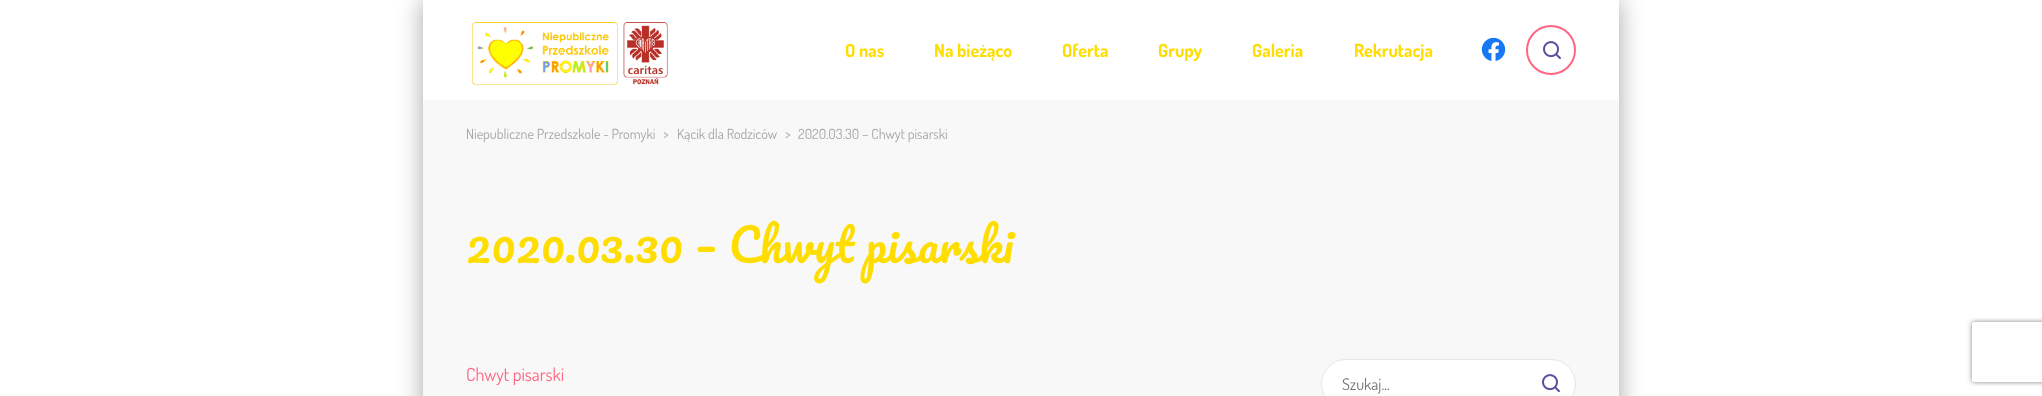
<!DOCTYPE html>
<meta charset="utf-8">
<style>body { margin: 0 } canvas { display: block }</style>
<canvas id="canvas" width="2042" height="396"></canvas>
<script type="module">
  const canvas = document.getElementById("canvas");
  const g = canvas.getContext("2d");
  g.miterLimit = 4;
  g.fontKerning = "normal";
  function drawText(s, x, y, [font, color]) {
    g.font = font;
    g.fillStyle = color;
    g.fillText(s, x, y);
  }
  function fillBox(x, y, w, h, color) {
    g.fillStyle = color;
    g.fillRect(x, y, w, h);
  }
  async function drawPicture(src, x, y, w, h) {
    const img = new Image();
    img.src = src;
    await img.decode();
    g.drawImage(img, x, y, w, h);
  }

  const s1 = ["bold 18px Dosis", "#FFDD00"];
  const s2 = ["14px Dosis", "#A6A6A6"];
  const s3 = ["45px Pacifico", "#FFDD00"];
  const s4 = ["18px Dosis", "#FF6682"];
  const s5 = ["16px Dosis", "#757575"];

  fillBox(0, 0, 2042, 396, "#FFFFFF");
  g.fillStyle = "rgba(0, 0, 0, 0.35)";
  g.filter = "blur(12.5px)";
  g.beginPath();
  g.rect(423, 0, 1196, 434);
  g.fill();
  g.filter = "none";
  fillBox(423, 100, 1196, 296, "#F8F8F8");
  fillBox(423, 0, 1196, 100, "#FFFFFF");
  await drawPicture("pic1.png", 472, 21, 196, 64);
  drawText("O nas", 845, 57, s1);
  drawText("Na bieżąco", 934, 57, s1);
  drawText("Oferta", 1062, 57, s1);
  drawText("Grupy", 1158, 57, s1);
  drawText("Galeria", 1252, 57, s1);
  drawText("Rekrutacja", 1354, 57, s1);
  await drawPicture("pic2.png", 1481, 37, 25, 24);
  g.beginPath();
  g.arc(1551, 50, 24, 0, Math.PI * 2);
  g.strokeStyle = "#FF6682";
  g.lineWidth = 2;
  g.stroke();
  await drawPicture("pic3.png", 1543, 41, 18, 19);
  drawText("Niepubliczne Przedszkole - Promyki", 466, 139, s2);
  drawText(">", 663, 139, s2);
  drawText("Kącik dla Rodziców", 677, 139, s2);
  drawText(">", 785, 139, s2);
  drawText("2020.03.30 – Chwyt pisarski", 798, 139, s2);
  drawText("2020.03.30 – Chwyt pisarski", 466, 263, s3);
  drawText("Chwyt pisarski", 466, 381, s4);
  g.fillStyle = "#FFFFFF";
  g.beginPath();
  g.roundRect(1321.5, 359.5, 254, 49, 24.5);
  g.fill();
  g.strokeStyle = "#E6E6E6";
  g.lineWidth = 1;
  g.stroke();
  drawText("Szukaj...", 1342, 390, s5);
  await drawPicture("pic3.png", 1542, 374, 18, 19);
  g.save();
  g.beginPath();
  g.moveTo(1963, 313);
  g.lineTo(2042, 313);
  g.lineTo(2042, 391);
  g.lineTo(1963, 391);
  g.closePath();
  g.moveTo(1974, 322);
  g.lineTo(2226, 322);
  g.bezierCurveTo(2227, 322, 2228, 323, 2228, 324);
  g.lineTo(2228, 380);
  g.bezierCurveTo(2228, 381, 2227, 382, 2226, 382);
  g.lineTo(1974, 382);
  g.bezierCurveTo(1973, 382, 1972, 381, 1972, 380);
  g.lineTo(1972, 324);
  g.bezierCurveTo(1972, 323, 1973, 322, 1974, 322);
  g.closePath();
  g.clip("evenodd");
  g.fillStyle = "#808080";
  g.filter = "blur(2.5px)";
  g.beginPath();
  g.roundRect(1972, 322, 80, 60, 2);
  g.fill();
  g.filter = "none";
  g.restore();
</script>
